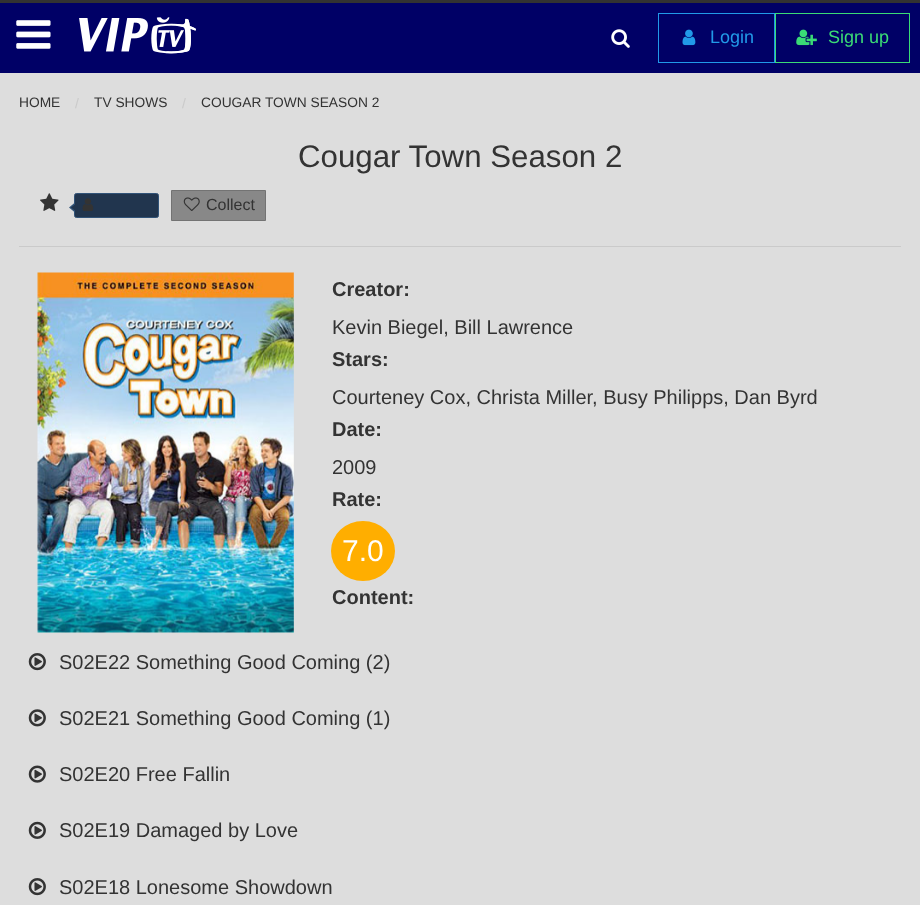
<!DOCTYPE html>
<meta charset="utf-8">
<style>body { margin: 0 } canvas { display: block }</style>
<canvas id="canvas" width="920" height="905"></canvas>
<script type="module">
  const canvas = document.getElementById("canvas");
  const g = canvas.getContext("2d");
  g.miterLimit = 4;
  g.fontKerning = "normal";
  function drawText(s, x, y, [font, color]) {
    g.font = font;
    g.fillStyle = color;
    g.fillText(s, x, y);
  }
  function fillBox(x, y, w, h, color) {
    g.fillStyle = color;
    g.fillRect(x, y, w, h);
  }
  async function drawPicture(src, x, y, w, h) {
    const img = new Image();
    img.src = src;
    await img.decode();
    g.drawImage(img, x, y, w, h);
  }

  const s1 = ["18px Liberation Sans", "#2199E8"];
  const s2 = ["18px Liberation Sans", "#3ADB76"];
  const s3 = ["13.75px Liberation Sans", "#333333"];
  const s4 = ["13.75px Liberation Sans", "#CACACA"];
  const s5 = ["31.25px Liberation Sans", "#333333"];
  const s6 = ["16px Liberation Sans", "#333333"];
  const s7 = ["bold 20px Liberation Sans", "#333333"];
  const s8 = ["20px Liberation Sans", "#333333"];
  const s9 = ["30px Liberation Sans", "#FEFEFE"];

  fillBox(0, 0, 920, 905, "#323232");
  fillBox(0, 3, 920, 70, "#000066");
  await drawPicture("pic1.png", 16, 20, 35, 29);
  await drawPicture("pic2.png", 79, 17, 117, 37);
  await drawPicture("pic3.png", 611, 29, 19, 19);
  g.strokeStyle = "#2199E8";
  g.strokeRect(658.5, 13.5, 116, 49);
  await drawPicture("pic4.png", 682, 29, 14, 17);
  drawText("Login", 710, 43, s1);
  g.strokeStyle = "#3ADB76";
  g.strokeRect(775.5, 13.5, 134, 49);
  await drawPicture("pic5.png", 796, 29, 21, 17);
  drawText("Sign up", 828, 43, s2);
  fillBox(0, 73, 920, 832, "#DDDDDD");
  drawText("HOME", 19, 107, s3);
  drawText("/", 75, 108, s4);
  drawText("TV SHOWS", 94, 107, s3);
  drawText("/", 182, 108, s4);
  drawText("COUGAR TOWN SEASON 2", 201, 107, s3);
  drawText("Cougar Town Season 2", 298, 167, s5);
  await drawPicture("pic6.png", 40, 193, 19, 18);
  g.fillStyle = "#21354E";
  g.beginPath();
  g.roundRect(74.5, 193.5, 84, 24, 2);
  g.fill();
  g.strokeStyle = "#315378";
  g.stroke();
  g.fillStyle = "#315378";
  g.beginPath();
  g.moveTo(75, 202.5);
  g.lineTo(75, 212.5);
  g.lineTo(69, 207.5);
  g.closePath();
  g.fill();
  g.fillStyle = "#21354E";
  g.beginPath();
  g.moveTo(77.5, 202.5);
  g.lineTo(77.5, 212.5);
  g.lineTo(71, 207.5);
  g.closePath();
  g.fill();
  await drawPicture("pic7.png", 82, 198, 12, 13);
  g.fillStyle = "#888888";
  g.beginPath();
  g.rect(171.5, 190.5, 94, 30);
  g.fill();
  g.strokeStyle = "#737373";
  g.stroke();
  await drawPicture("pic8.png", 183, 197, 17, 14);
  drawText("Collect", 206, 210, s6);
  fillBox(19, 246, 882, 1, "#CACACA");
  await drawPicture("pic9.png", 37, 272, 257, 361);
  drawText("Creator:", 332, 296, s7);
  drawText("Kevin Biegel, Bill Lawrence", 332, 334, s8);
  drawText("Stars:", 332, 366, s7);
  drawText("Courteney Cox, Christa Miller, Busy Philipps, Dan Byrd", 332, 404, s8);
  drawText("Date:", 332, 436, s7);
  drawText("2009", 332, 474, s8);
  drawText("Rate:", 332, 506, s7);
  g.fillStyle = "#FFAE00";
  g.beginPath();
  g.ellipse(363, 551, 32, 30, 0, 0, Math.PI * 2);
  g.fill();
  drawText("7.0", 342, 561, s9);
  drawText("Content:", 332, 604, s7);
  await drawPicture("pic10.png", 28, 653, 18, 18);
  drawText("S02E22 Something Good Coming (2)", 59, 669, s8);
  await drawPicture("pic11.png", 28, 709, 18, 18);
  drawText("S02E21 Something Good Coming (1)", 59, 725, s8);
  await drawPicture("pic12.png", 28, 765, 18, 18);
  drawText("S02E20 Free Fallin", 59, 781, s8);
  await drawPicture("pic13.png", 28, 821, 18, 18);
  drawText("S02E19 Damaged by Love", 59, 837, s8);
  await drawPicture("pic10.png", 28, 878, 18, 18);
  drawText("S02E18 Lonesome Showdown", 59, 894, s8);
</script>
